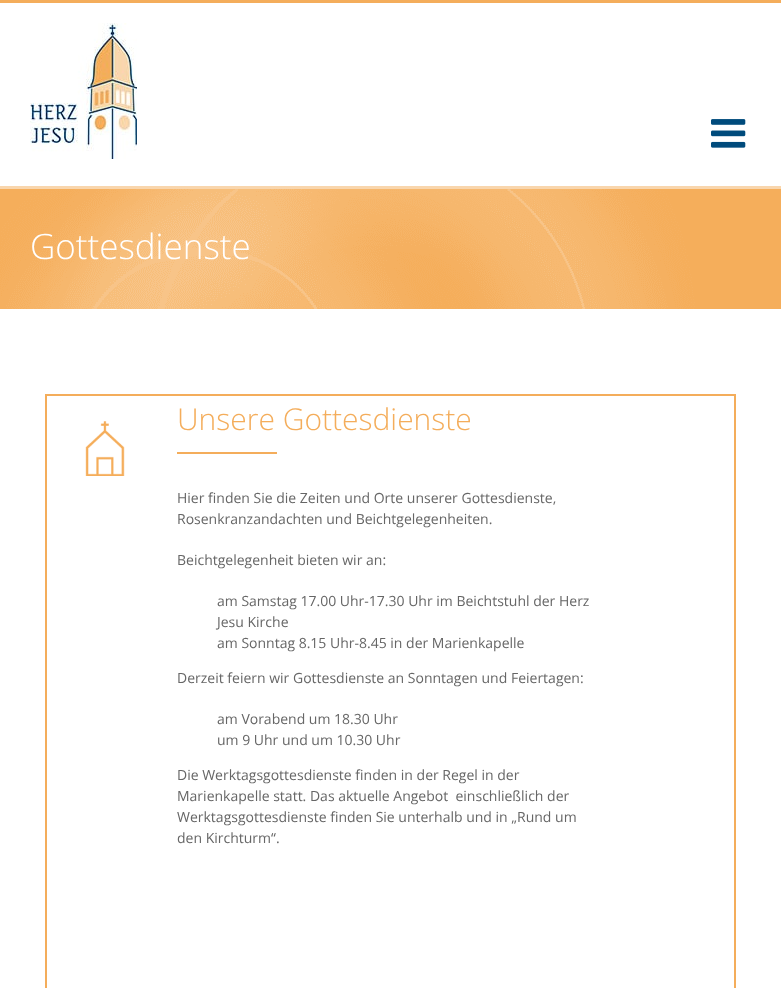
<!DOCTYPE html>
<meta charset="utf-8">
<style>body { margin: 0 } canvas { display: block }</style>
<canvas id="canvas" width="781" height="988"></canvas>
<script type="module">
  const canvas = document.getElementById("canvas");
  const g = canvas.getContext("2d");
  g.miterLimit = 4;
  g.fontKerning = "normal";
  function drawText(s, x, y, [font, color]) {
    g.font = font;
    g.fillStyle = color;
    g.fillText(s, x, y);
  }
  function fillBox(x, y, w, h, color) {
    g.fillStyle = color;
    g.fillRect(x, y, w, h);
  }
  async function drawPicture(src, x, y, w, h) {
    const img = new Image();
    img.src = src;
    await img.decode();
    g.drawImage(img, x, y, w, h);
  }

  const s1 = ["300 35px Open Sans", "#FFFFFF"];
  const s2 = ["300 30px Open Sans", "#F4AD5B"];
  const s3 = ["14px Open Sans", "#666666"];

  fillBox(0, 0, 781, 988, "#FFFFFF");
  fillBox(0, 0, 781, 3, "#F4AD5B");
  fillBox(0, 186, 781, 3, "#F9D6AD");
  await drawPicture("pic1.png", 30, 23, 107, 136);
  await drawPicture("pic2.png", 711, 119, 35, 29);
  await drawPicture("pic3.png", 0, 189, 781, 120);
  drawText("Gottesdienste", 30, 259, s1);
  g.strokeStyle = "#F4AD5B";
  g.lineWidth = 2;
  g.strokeRect(46, 395, 689, 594);
  await drawPicture("pic4.png", 85, 421, 40, 55);
  drawText("Unsere Gottesdienste", 177, 430, s2);
  fillBox(177, 452, 100, 2, "#F4AD5B");
  drawText("Hier finden Sie die Zeiten und Orte unserer Gottesdienste,", 177, 503, s3);
  drawText("Rosenkranzandachten und Beichtgelegenheiten.", 177, 524, s3);
  drawText("Beichtgelegenheit bieten wir an:", 177, 565, s3);
  drawText("am Samstag 17.00 Uhr-17.30 Uhr im Beichtstuhl der Herz", 217, 606, s3);
  drawText("Jesu Kirche", 217, 627, s3);
  drawText("am Sonntag 8.15 Uhr-8.45 in der Marienkapelle", 217, 648, s3);
  drawText("Derzeit feiern wir Gottesdienste an Sonntagen und Feiertagen:", 177, 683, s3);
  drawText("am Vorabend um 18.30 Uhr", 217, 724, s3);
  drawText("um 9 Uhr und um 10.30 Uhr", 217, 745, s3);
  drawText("Die Werktagsgottesdienste finden in der Regel in der", 177, 780, s3);
  drawText("Marienkapelle statt. Das aktuelle Angebot  einschließlich der", 177, 801, s3);
  drawText("Werktagsgottesdienste finden Sie unterhalb und in „Rund um", 177, 822, s3);
  drawText("den Kirchturm“.", 177, 843, s3);
</script>
